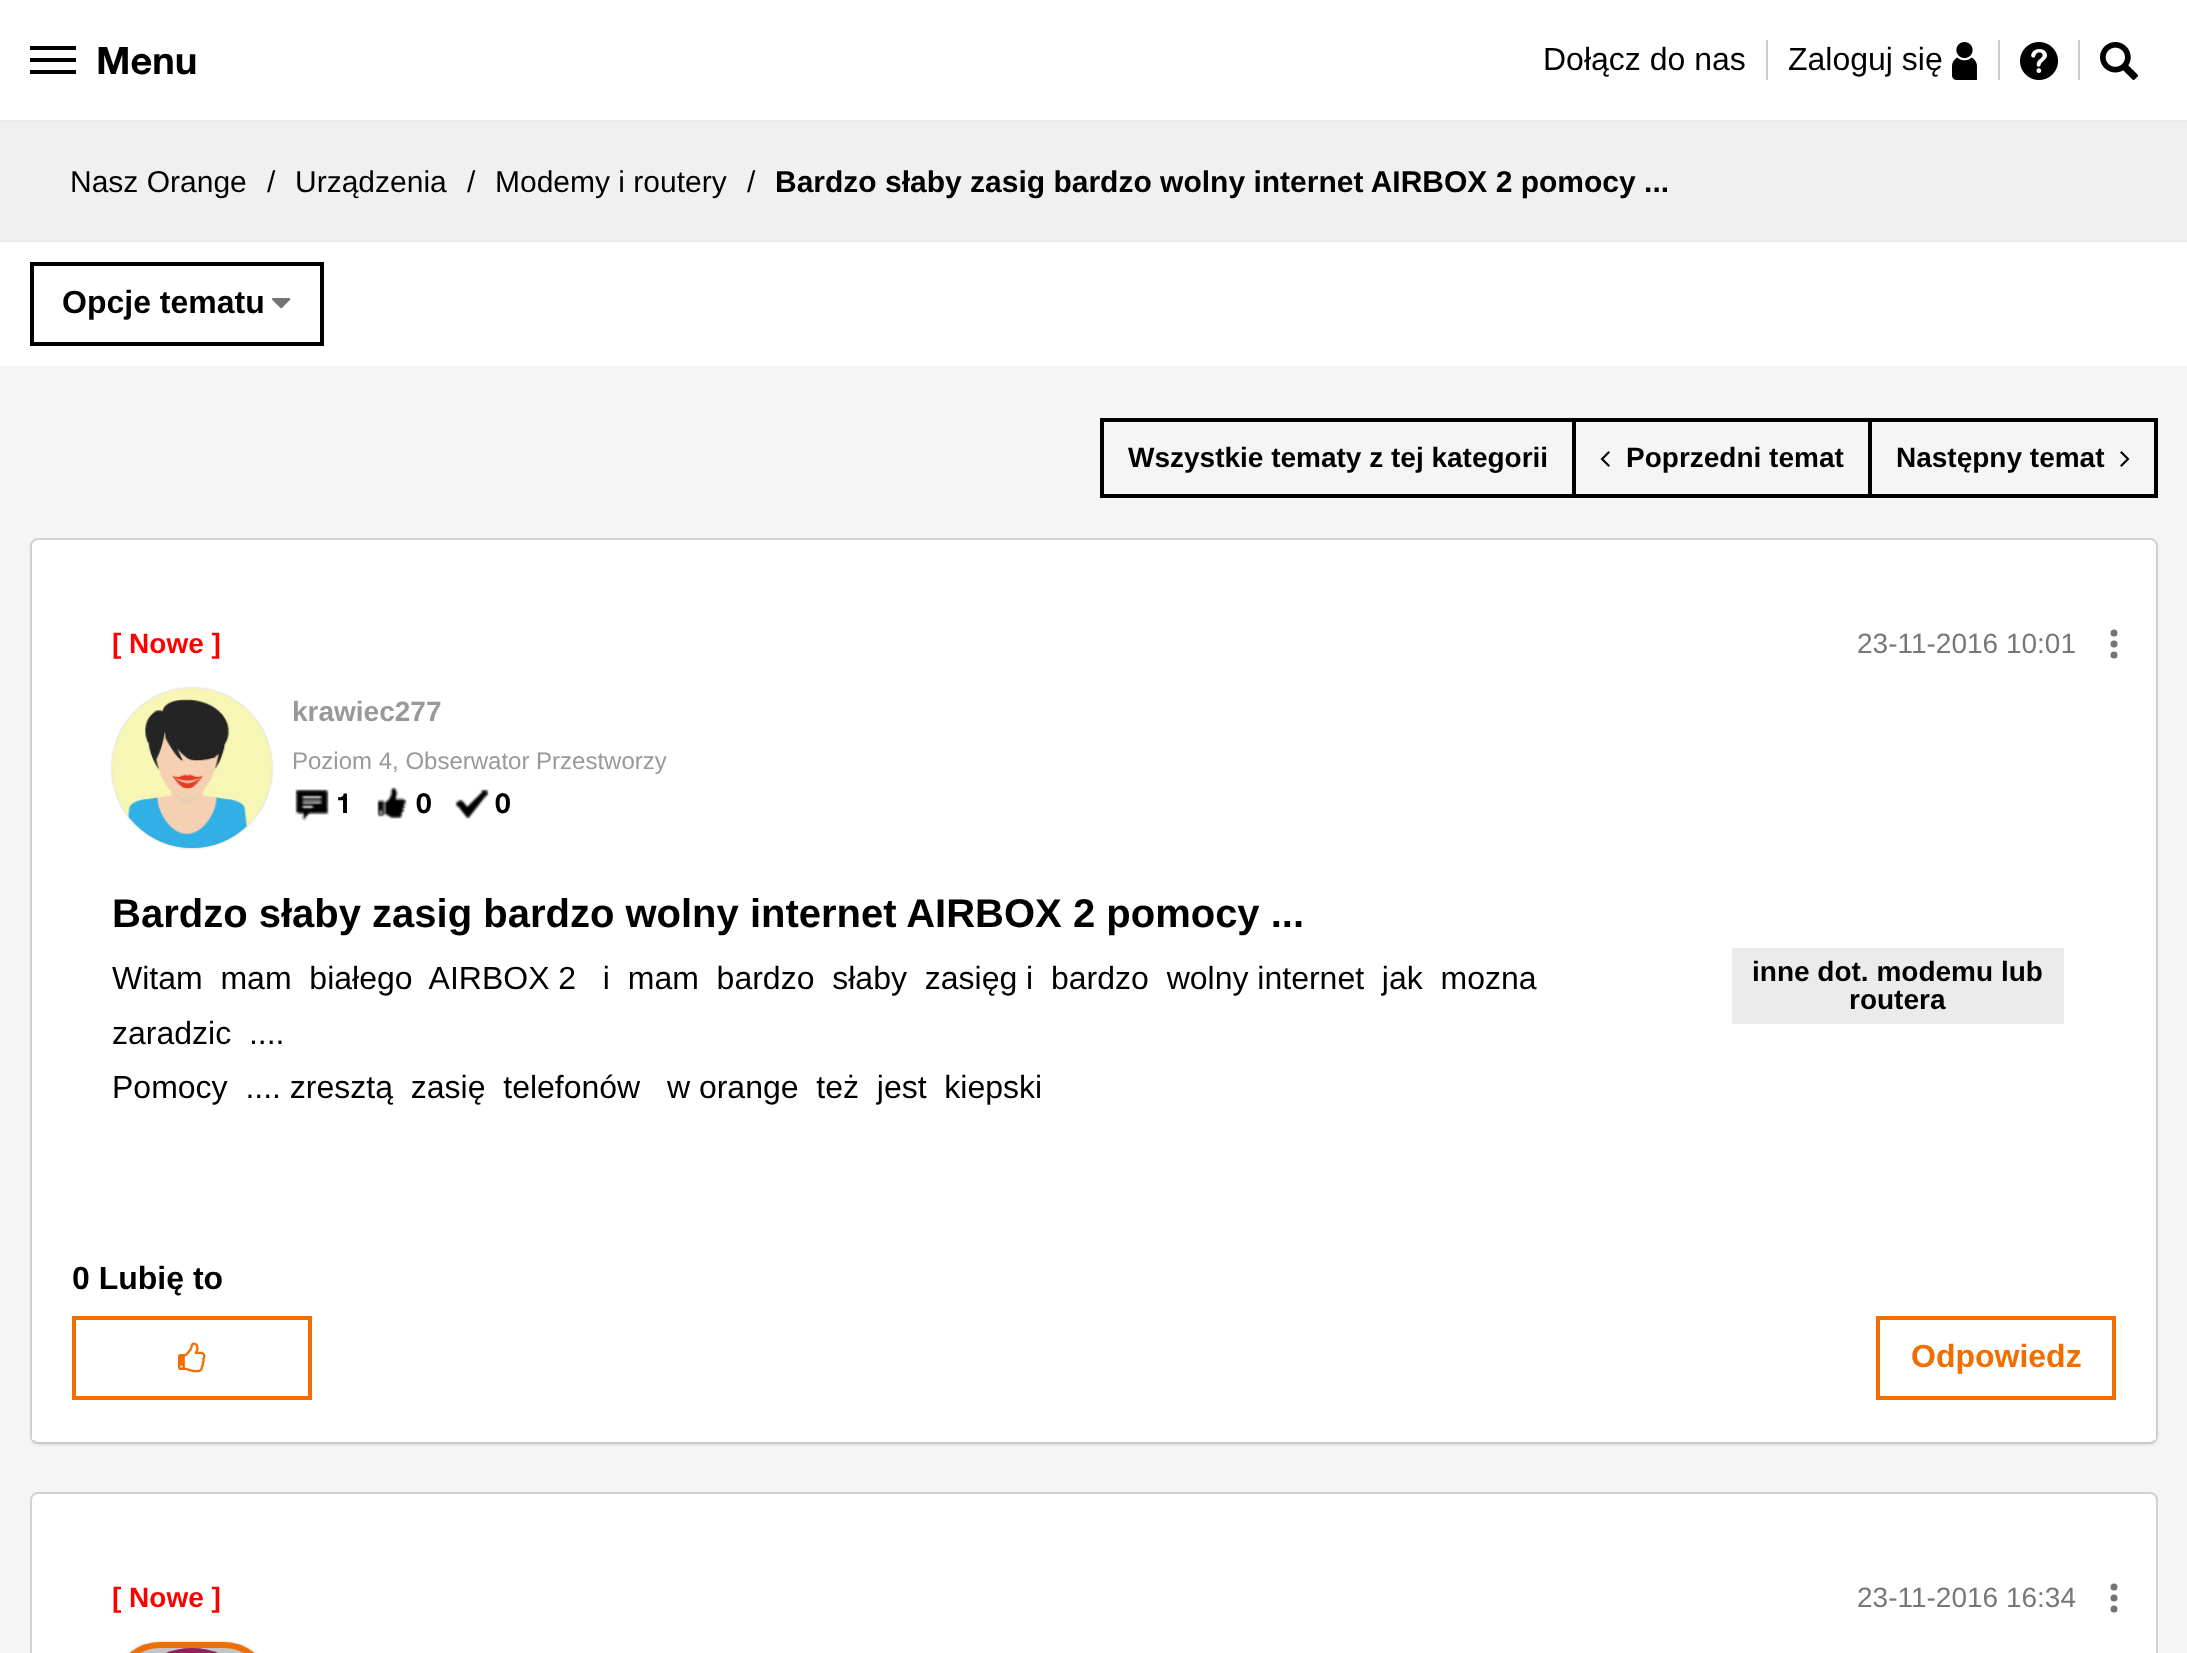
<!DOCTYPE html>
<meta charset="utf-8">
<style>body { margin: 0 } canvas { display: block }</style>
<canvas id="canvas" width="2187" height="1653"></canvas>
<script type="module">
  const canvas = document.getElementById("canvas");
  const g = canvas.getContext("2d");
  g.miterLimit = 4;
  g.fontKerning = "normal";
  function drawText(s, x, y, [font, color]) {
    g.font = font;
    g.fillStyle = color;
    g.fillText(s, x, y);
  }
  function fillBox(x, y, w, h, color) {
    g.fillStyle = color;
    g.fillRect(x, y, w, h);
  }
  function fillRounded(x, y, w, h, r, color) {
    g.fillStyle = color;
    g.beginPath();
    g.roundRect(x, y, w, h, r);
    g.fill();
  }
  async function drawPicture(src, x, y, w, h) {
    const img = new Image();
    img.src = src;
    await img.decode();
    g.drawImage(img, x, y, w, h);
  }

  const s1 = ["bold 38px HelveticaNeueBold", "#000000"];
  const s2 = ["32px Liberation Sans", "#000000"];
  const s3 = ["30px Liberation Sans", "#000000"];
  const s4 = ["bold 30px Liberation Sans", "#000000"];
  const s5 = ["bold 32px Liberation Sans", "#000000"];
  const s6 = ["bold 28px Liberation Sans", "#000000"];
  const s7 = ["bold 28px Liberation Sans", "#FF0000"];
  const s8 = ["bold 28px Liberation Sans", "#999999"];
  const s9 = ["24px Liberation Sans", "#999999"];
  const s10 = ["bold 28px HelveticaNeueBold", "#000000"];
  const s11 = ["28px Liberation Sans", "#777777"];
  const s12 = ["bold 40px Liberation Sans", "#000000"];
  const s13 = ["bold 32px Liberation Sans", "#F16E00"];

  fillBox(0, 0, 2187, 1653, "#F5F5F5");
  fillBox(0, 0, 2187, 366, "#FFFFFF");
  fillBox(30, 58, 46, 4, "#000000");
  fillBox(30, 46, 46, 4, "#000000");
  fillBox(30, 70, 46, 4, "#000000");
  drawText("Menu", 96, 74, s1);
  fillBox(1766, 40, 2, 40, "#CCCCCC");
  drawText("Dołącz do nas", 1543, 70, s2);
  fillBox(1998, 40, 2, 40, "#CCCCCC");
  drawText("Zaloguj się", 1788, 70, s2);
  await drawPicture("pic1.png", 1952, 42, 25, 38);
  fillBox(2078, 40, 2, 40, "#CCCCCC");
  await drawPicture("pic2.png", 2020, 42, 38, 38);
  await drawPicture("pic3.png", 2100, 42, 38, 38);
  fillBox(0, 122, 2187, 118, "#F0F0F0");
  fillBox(0, 120, 2187, 2, "#EBEBEB");
  fillBox(0, 240, 2187, 2, "#EBEBEB");
  drawText("Nasz Orange", 70, 192, s3);
  drawText("/", 267, 192, s3);
  drawText("Urządzenia", 295, 192, s3);
  drawText("/", 467, 192, s3);
  drawText("Modemy i routery", 495, 192, s3);
  drawText("/", 747, 192, s3);
  drawText("Bardzo słaby zasig bardzo wolny internet AIRBOX 2 pomocy ...", 775, 192, s4);
  g.strokeStyle = "#000000";
  g.lineWidth = 4;
  g.strokeRect(32, 264, 290, 80);
  drawText("Opcje tematu", 62, 313, s5);
  await drawPicture("pic4.png", 272, 298, 19, 11);
  g.strokeRect(1102, 420, 472, 76);
  drawText("Wszystkie tematy z tej kategorii", 1128, 467, s6);
  g.strokeRect(1574, 420, 296, 76);
  await drawPicture("pic5.png", 1600, 451, 10, 16);
  drawText("Poprzedni temat", 1626, 467, s6);
  g.strokeRect(1870, 420, 286, 76);
  drawText("Następny temat", 1896, 467, s6);
  await drawPicture("pic6.png", 2120, 451, 10, 16);
  g.fillStyle = "rgba(0, 0, 0, 0.05)";
  g.filter = "blur(1px)";
  g.beginPath();
  g.roundRect(30, 540, 2128, 906, 8);
  g.fill();
  g.filter = "none";
  g.fillStyle = "#FFFFFF";
  g.beginPath();
  g.roundRect(31, 539, 2126, 904, 7);
  g.fill();
  g.strokeStyle = "#D1D1D1";
  g.lineWidth = 2;
  g.stroke();
  g.fillStyle = "rgba(0, 0, 0, 0.05)";
  g.filter = "blur(1px)";
  g.beginPath();
  g.roundRect(32, 542, 2124, 902, 8);
  g.fill();
  g.filter = "none";
  fillRounded(32, 540, 2124, 902, 8, "#FFFFFF");
  drawText("[ Nowe ]", 112, 653, s7);
  g.fillStyle = "#C4C4C4";
  g.filter = "blur(1px)";
  g.beginPath();
  g.roundRect(112, 688, 160, 160, 80);
  g.fill();
  g.filter = "none";
  await drawPicture("pic7.png", 112, 688, 160, 160);
  drawText("krawiec277", 292, 721, s8);
  drawText("Poziom 4, Obserwator Przestworzy", 292, 769, s9);
  await drawPicture("pic8.png", 295, 789, 34, 32);
  drawText("1", 336, 813, s10);
  await drawPicture("pic9.png", 377, 787, 30, 32);
  drawText("0", 416, 813, s10);
  await drawPicture("pic10.png", 455, 789, 34, 30);
  drawText("0", 495, 813, s10);
  drawText("23-11-2016 10:01", 1857, 653, s11);
  g.fillStyle = "#747474";
  g.beginPath();
  g.arc(2114, 633, 3.5, 0, Math.PI * 2);
  g.fill();
  g.beginPath();
  g.arc(2114, 644, 3.5, 0, Math.PI * 2);
  g.fill();
  g.beginPath();
  g.arc(2114, 655, 3.5, 0, Math.PI * 2);
  g.fill();
  drawText("Bardzo słaby zasig bardzo wolny internet AIRBOX 2 pomocy ...", 112, 927, s12);
  drawText("Witam  mam  białego  AIRBOX 2   i  mam  bardzo  słaby  zasięg i  bardzo  wolny internet  jak  mozna", 112, 989, s2);
  drawText("zaradzic  ....", 112, 1044, s2);
  drawText("Pomocy  .... zresztą  zasię  telefonów   w orange  też  jest  kiepski", 112, 1098, s2);
  fillBox(1732, 948, 332, 76, "#EBEBEB");
  drawText("inne dot. modemu lub", 1752, 981, s6);
  drawText("routera", 1849, 1009, s6);
  fillBox(32, 1436, 2124, 4, "#FFFFFF");
  drawText("0 Lubię to", 72, 1289, s5);
  g.strokeStyle = "#F16E00";
  g.lineWidth = 4;
  g.strokeRect(74, 1318, 236, 80);
  await drawPicture("pic11.png", 178, 1342, 28, 31);
  g.strokeRect(1878, 1318, 236, 80);
  drawText("Odpowiedz", 1911, 1367, s13);
  g.fillStyle = "#FFFFFF";
  g.beginPath();
  g.roundRect(31, 1493, 2126, 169, 7);
  g.fill();
  g.strokeStyle = "#D1D1D1";
  g.lineWidth = 2;
  g.stroke();
  drawText("[ Nowe ]", 112, 1607, s7);
  g.fillStyle = "#C4C4C4";
  g.filter = "blur(1px)";
  g.beginPath();
  g.roundRect(112, 1642, 160, 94, 80);
  g.fill();
  g.filter = "none";
  g.beginPath();
  g.roundRect(115, 1645, 154, 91, 77);
  g.strokeStyle = "#F16E00";
  g.lineWidth = 6;
  g.stroke();
  await drawPicture("pic12.png", 166, 1648, 52, 5);
  drawText("23-11-2016 16:34", 1857, 1607, s11);
  g.fillStyle = "#747474";
  g.beginPath();
  g.arc(2114, 1587, 3.5, 0, Math.PI * 2);
  g.fill();
  g.beginPath();
  g.arc(2114, 1598, 3.5, 0, Math.PI * 2);
  g.fill();
  g.beginPath();
  g.arc(2114, 1609, 3.5, 0, Math.PI * 2);
  g.fill();
</script>
